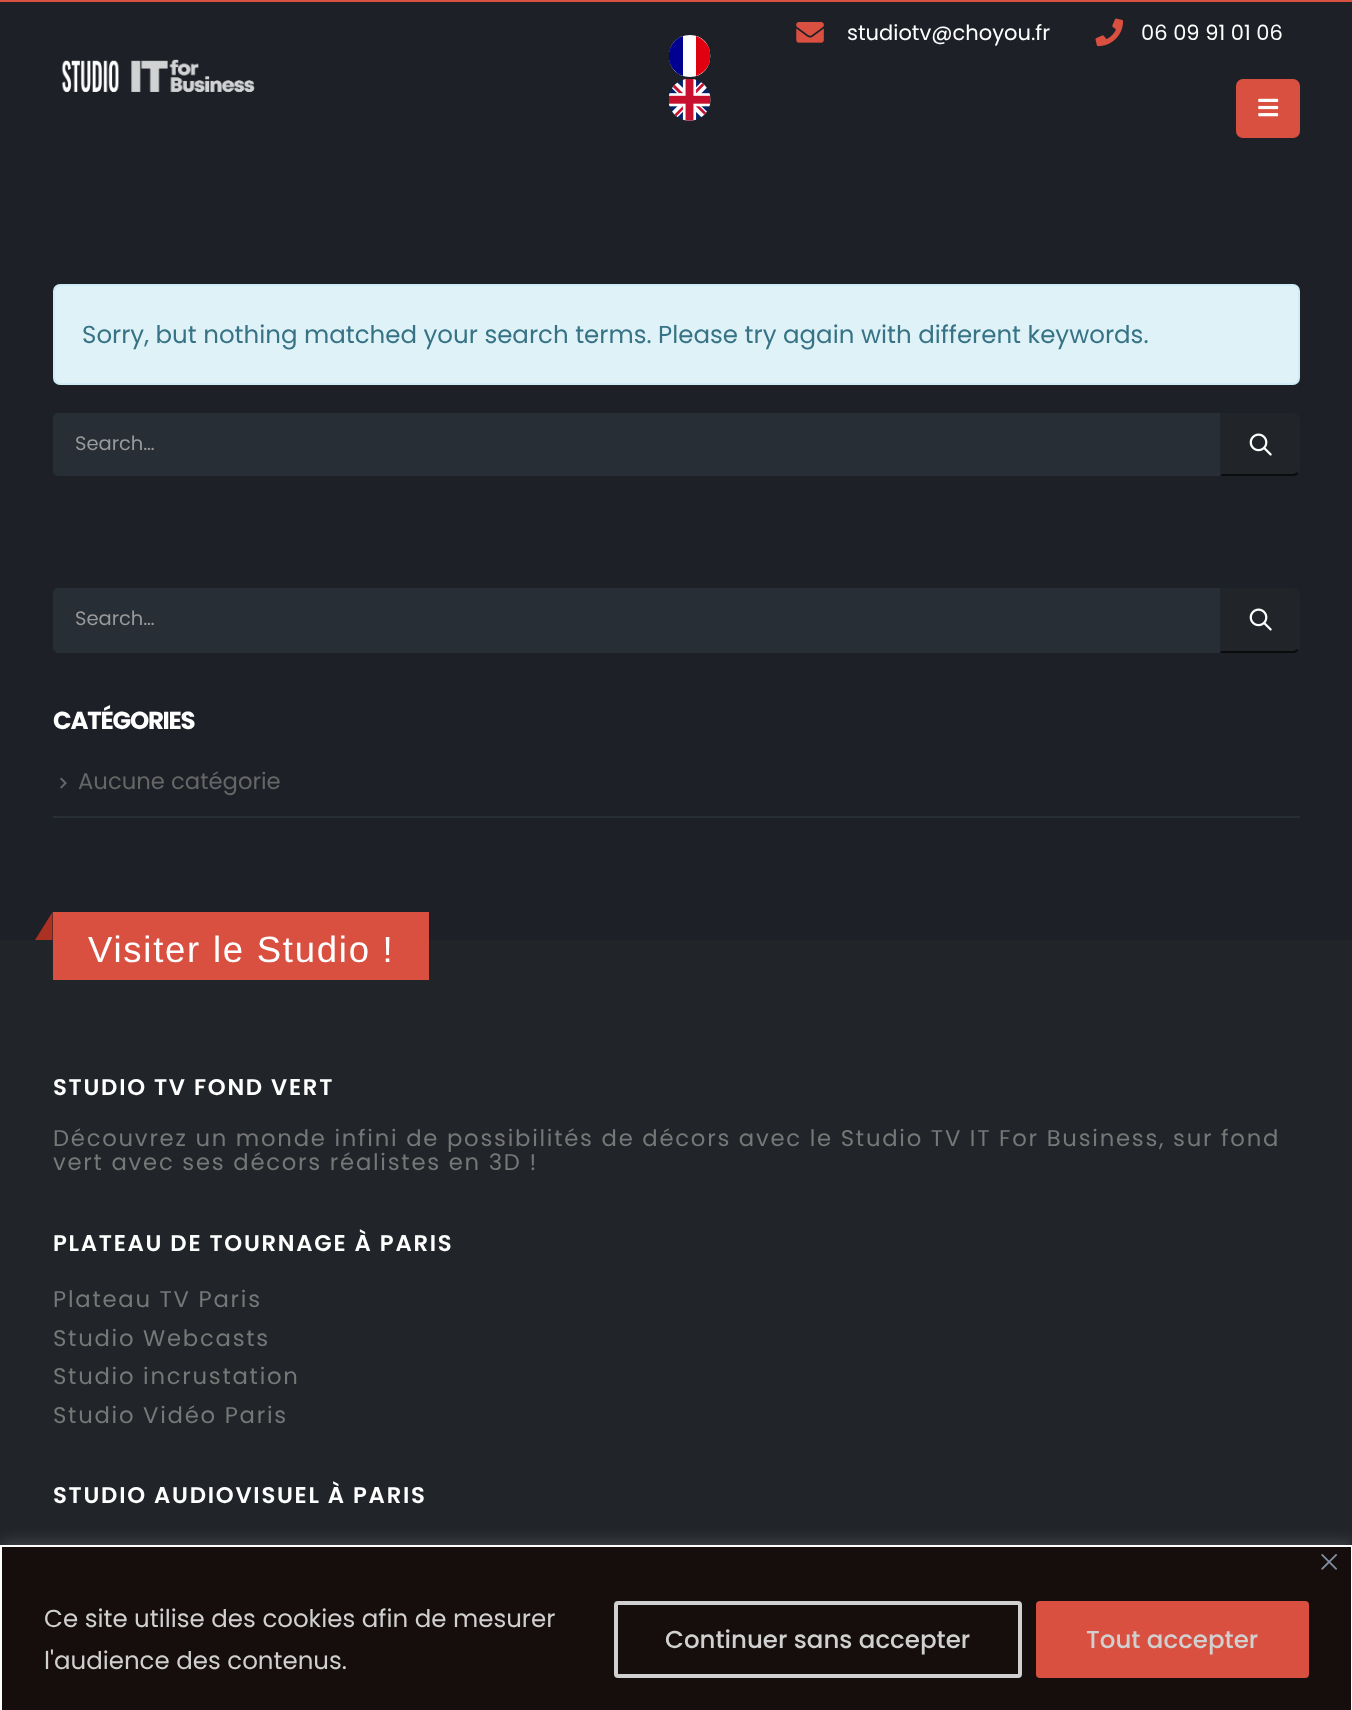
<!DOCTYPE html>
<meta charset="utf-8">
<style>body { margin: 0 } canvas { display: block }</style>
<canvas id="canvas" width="1352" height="1710"></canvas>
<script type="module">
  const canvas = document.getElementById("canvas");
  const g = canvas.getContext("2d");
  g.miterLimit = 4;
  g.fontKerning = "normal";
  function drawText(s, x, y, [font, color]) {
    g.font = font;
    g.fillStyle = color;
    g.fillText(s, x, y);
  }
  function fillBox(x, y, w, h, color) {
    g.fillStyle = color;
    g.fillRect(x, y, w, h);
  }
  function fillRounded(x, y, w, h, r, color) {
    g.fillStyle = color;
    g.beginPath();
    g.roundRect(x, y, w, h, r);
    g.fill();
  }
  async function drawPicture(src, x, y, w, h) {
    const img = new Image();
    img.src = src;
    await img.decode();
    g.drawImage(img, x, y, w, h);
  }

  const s1 = ["21px Poppins", "#FFFFFF"];
  const s2 = ["24.5px Poppins", "#377385"];
  const s3 = ["19.5px Poppins", "#999999"];
  const s4 = ["bold 24.5px Poppins", "#FFFFFF"];
  const s5 = ["22.75px Poppins", "#666666"];
  const s6 = ["36.5px Liberation Sans", "#FFFFFF"];
  const s7 = ["600 22.75px Poppins", "#FFFFFF"];
  const s8 = ["22.75px Poppins", "#777777"];
  const s9 = ["24.5px Poppins", "#D0D0D0"];
  const s10 = ["500 24.5px Poppins", "#D0D0D0"];

  fillBox(0, 0, 1352, 1710, "#1D2127");
  fillBox(0, 0, 1352, 2, "#D95040");
  await drawPicture("pic1.png", 61, 59, 194, 34);
  g.fillStyle = "#FFFFFF";
  g.beginPath();
  g.moveTo(690, 35);
  g.bezierCurveTo(717, 35, 717, 77, 690, 77);
  g.bezierCurveTo(662, 77, 662, 35, 690, 35);
  g.closePath();
  g.fill();
  g.save();
  g.beginPath();
  g.rect(669, 35, 42, 42);
  g.clip();
  g.fillStyle = "#000091";
  g.beginPath();
  g.moveTo(683, 36);
  g.lineTo(683, 76);
  g.bezierCurveTo(664, 69.5, 664, 42.5, 683, 36);
  g.closePath();
  g.fill();
  g.restore();
  g.fillStyle = "#E1000F";
  g.beginPath();
  g.moveTo(710, 60.5);
  g.bezierCurveTo(708.5, 68, 703, 73.5, 696, 76);
  g.lineTo(696, 36);
  g.bezierCurveTo(703, 38.5, 708.5, 44, 710, 51.5);
  g.closePath();
  g.fill();
  await drawPicture("pic2.png", 669, 79, 42, 42);
  await drawPicture("pic3.png", 796, 22, 28, 21);
  drawText("studiotv@choyou.fr", 847, 40, s1);
  await drawPicture("pic4.png", 1095, 18, 29, 29);
  drawText("06 09 91 01 06", 1141, 40, s1);
  fillRounded(1236, 79, 64, 59, 7, "#D95040");
  await drawPicture("pic5.png", 1258, 98, 21, 19);
  g.fillStyle = "#DEF2F8";
  g.beginPath();
  g.roundRect(54, 285, 1245, 99, 6);
  g.fill();
  g.strokeStyle = "#CEECF5";
  g.lineWidth = 2;
  g.stroke();
  drawText("Sorry, but nothing matched your search terms. Please try again with different keywords.", 82, 343, s2);
  g.fillStyle = "#282E36";
  g.beginPath();
  g.roundRect(54, 414, 1167, 61, [4, 0, 0, 4]);
  g.fill();
  g.strokeStyle = "#282E36";
  g.stroke();
  drawText("Search…", 75, 450, s3);
  g.fillStyle = "#212529";
  g.beginPath();
  g.roundRect(1220, 413, 80, 63, [0, 7, 7, 0]);
  g.fill();
  g.fillStyle = "#0B0C0D";
  g.beginPath();
  g.moveTo(1220, 476);
  g.lineTo(1293, 476);
  g.bezierCurveTo(1295, 476, 1297, 475, 1298, 474);
  g.lineTo(1297, 472);
  g.lineTo(1294, 474);
  g.lineTo(1222, 474);
  g.closePath();
  g.fill();
  g.fillStyle = "#212529";
  g.beginPath();
  g.moveTo(1220, 413);
  g.lineTo(1220, 476);
  g.lineTo(1222, 474);
  g.lineTo(1222, 415);
  g.closePath();
  g.fill();
  await drawPicture("pic6.png", 1249, 433, 23, 23);
  g.fillStyle = "#282E36";
  g.beginPath();
  g.roundRect(54, 589, 1167, 63, [4, 0, 0, 4]);
  g.fill();
  g.stroke();
  drawText("Search…", 75, 625, s3);
  g.fillStyle = "#212529";
  g.beginPath();
  g.roundRect(1220, 588, 80, 65, [0, 7, 7, 0]);
  g.fill();
  g.fillStyle = "#0B0C0D";
  g.beginPath();
  g.moveTo(1220, 653);
  g.lineTo(1222, 650);
  g.lineTo(1222, 651);
  g.lineTo(1294, 651);
  g.lineTo(1297, 649);
  g.lineTo(1298, 651);
  g.lineTo(1295, 653);
  g.closePath();
  g.fill();
  g.fillStyle = "#212529";
  g.beginPath();
  g.moveTo(1220, 588);
  g.lineTo(1220, 652);
  g.lineTo(1222, 650);
  g.lineTo(1222, 590);
  g.closePath();
  g.fill();
  await drawPicture("pic6.png", 1249, 608, 23, 23);
  g.letterSpacing = "-1.25px";
  drawText("CATÉGORIES", 53, 729, s4);
  fillBox(53, 816, 1247, 2, "#282E36");
  await drawPicture("pic7.png", 60, 777, 7, 12);
  g.letterSpacing = "0px";
  drawText("Aucune catégorie", 78, 789, s5);
  fillBox(0, 940, 1352, 605, "#212529");
  fillBox(53, 912, 376, 68, "#D95040");
  g.fillStyle = "#AB3122";
  g.beginPath();
  g.moveTo(52.5, 912);
  g.lineTo(52.5, 940);
  g.lineTo(35, 940);
  g.closePath();
  g.fill();
  g.letterSpacing = "1.75px";
  drawText("Visiter le Studio !", 88, 962, s6);
  drawText("STUDIO TV FOND VERT", 53, 1095, s7);
  drawText("Découvrez un monde infini de possibilités de décors avec le Studio TV IT For Business, sur fond", 53, 1146, s8);
  drawText("vert avec ses décors réalistes en 3D !", 53, 1170, s8);
  drawText("PLATEAU DE TOURNAGE À PARIS", 53, 1251, s7);
  drawText("Plateau TV Paris", 53, 1307, s8);
  drawText("Studio Webcasts", 53, 1346, s8);
  drawText("Studio incrustation", 53, 1384, s8);
  drawText("Studio Vidéo Paris", 53, 1423, s8);
  drawText("STUDIO AUDIOVISUEL À PARIS", 53, 1503, s7);
  g.fillStyle = "rgba(172, 171, 171, 0.3)";
  g.filter = "blur(9px)";
  g.beginPath();
  g.rect(0, 1544, 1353, 166);
  g.fill();
  g.filter = "none";
  g.fillStyle = "#160E0D";
  g.beginPath();
  g.rect(1, 1546, 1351, 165);
  g.fill();
  g.strokeStyle = "#FFFFFF";
  g.stroke();
  await drawPicture("pic8.png", 1321, 1554, 16, 16);
  g.letterSpacing = "0px";
  drawText("Ce site utilise des cookies afin de mesurer", 44, 1627, s9);
  drawText("l'audience des contenus.", 44, 1669, s9);
  g.beginPath();
  g.roundRect(616, 1603, 404, 73, 2);
  g.strokeStyle = "#D0D0D0";
  g.lineWidth = 4;
  g.stroke();
  drawText("Continuer sans accepter", 665, 1648, s10);
  g.fillStyle = "#D95040";
  g.beginPath();
  g.roundRect(1038, 1603, 269, 73, 2);
  g.fill();
  g.strokeStyle = "#D95040";
  g.stroke();
  drawText("Tout accepter", 1086, 1648, s10);
</script>
